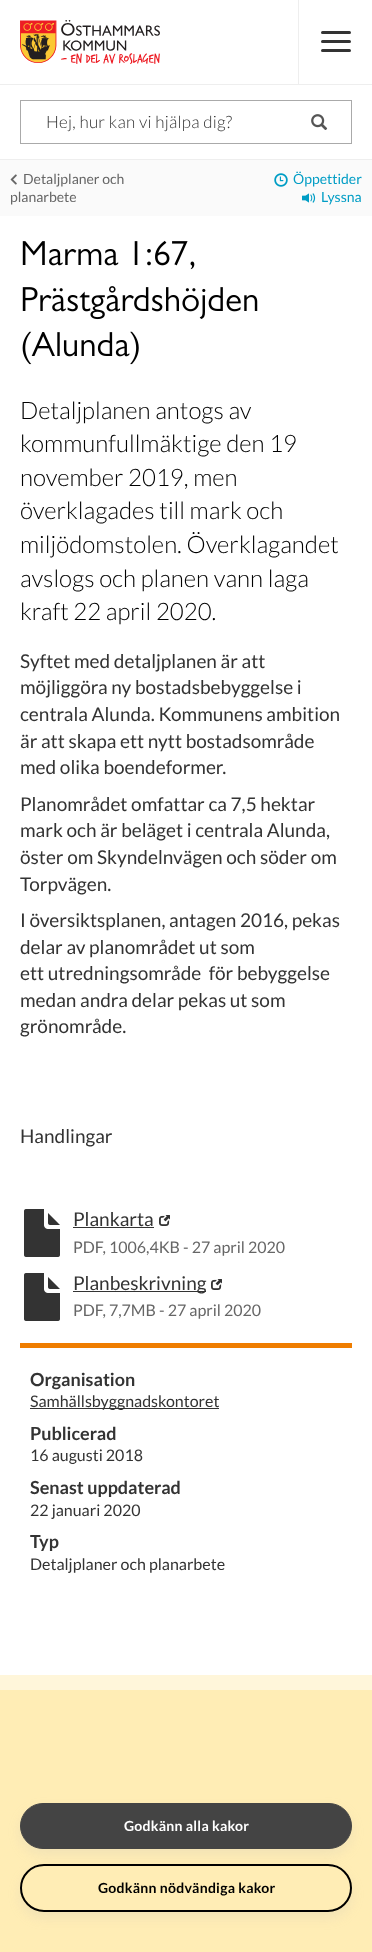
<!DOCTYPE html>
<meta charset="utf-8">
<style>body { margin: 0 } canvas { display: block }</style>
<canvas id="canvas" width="372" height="1952"></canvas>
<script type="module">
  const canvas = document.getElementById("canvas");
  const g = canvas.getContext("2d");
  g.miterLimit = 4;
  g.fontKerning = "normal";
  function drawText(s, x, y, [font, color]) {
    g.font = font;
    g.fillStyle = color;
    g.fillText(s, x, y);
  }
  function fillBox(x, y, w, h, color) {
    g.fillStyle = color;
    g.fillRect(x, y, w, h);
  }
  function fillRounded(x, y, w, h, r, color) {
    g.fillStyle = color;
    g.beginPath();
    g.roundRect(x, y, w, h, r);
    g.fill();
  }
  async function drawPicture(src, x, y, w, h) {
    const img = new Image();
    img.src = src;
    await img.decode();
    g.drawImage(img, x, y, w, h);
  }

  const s1 = ["300 17px Lato", "#333333"];
  const s2 = ["14px Lato", "#666666"];
  const s3 = ["14px Lato", "#009DC5"];
  const s4 = ["300 24px Lato", "#000000"];
  const s5 = ["19px Lato", "#333333"];
  const s6 = ["16px Lato", "#666666"];
  const s7 = ["bold 18px Lato", "#333333"];
  const s8 = ["16px Lato", "#333333"];
  const s9 = ["bold 14px Lato", "#FFFFFF"];
  const s10 = ["bold 14px Lato", "#000000"];

  fillBox(0, 0, 372, 1952, "#FFFFFF");
  await drawPicture("pic1.png", 20, 20, 140, 44);
  fillBox(298, 0, 1, 84, "#EEEEEE");
  fillRounded(321, 31, 30, 3, 1.5, "#333333");
  fillRounded(321, 40, 30, 3, 1.5, "#333333");
  fillRounded(321, 49, 30, 3, 1.5, "#333333");
  fillBox(0, 84, 372, 1, "#EEEEEE");
  fillBox(0, 159, 372, 1, "#EEEEEE");
  g.strokeStyle = "#AAAAAA";
  g.strokeRect(20.5, 100.5, 331, 43);
  g.letterSpacing = "0.25px";
  drawText("Hej, hur kan vi hjälpa dig?", 46, 128, s1);
  await drawPicture("pic2.png", 311, 114, 17, 16);
  fillBox(0, 160, 372, 56, "#FAFAFA");
  await drawPicture("pic3.png", 10, 174, 7, 11);
  g.letterSpacing = "0px";
  drawText("Detaljplaner och", 23, 184, s2);
  drawText("planarbete", 10, 202, s2);
  await drawPicture("pic4.png", 274, 173, 14, 14);
  drawText("Öppettider", 293, 184, s3);
  await drawPicture("pic5.png", 302, 193, 14, 10);
  drawText("Lyssna", 321, 202, s3);
  await drawPicture("pic6.png", 22, 240, 173, 30);
  await drawPicture("pic7.png", 22, 286, 236, 34);
  await drawPicture("pic8.png", 22, 331, 117, 34);
  drawText("Detaljplanen antogs av", 20, 419, s4);
  drawText("kommunfullmäktige den 19", 20, 452, s4);
  drawText("november 2019, men", 20, 486, s4);
  drawText("överklagades till mark och", 20, 519, s4);
  drawText("miljödomstolen. Överklagandet", 20, 553, s4);
  drawText("avslogs och planen vann laga", 20, 587, s4);
  drawText("kraft 22 april 2020.", 20, 620, s4);
  drawText("Syftet med detaljplanen är att", 20, 668, s5);
  drawText("möjliggöra ny bostadsbebyggelse i", 20, 694, s5);
  drawText("centrala Alunda. Kommunens ambition", 20, 721, s5);
  drawText("är att skapa ett nytt bostadsområde", 20, 748, s5);
  drawText("med olika boendeformer.", 20, 774, s5);
  drawText("Planområdet omfattar ca 7,5 hektar", 20, 811, s5);
  drawText("mark och är beläget i centrala Alunda,", 20, 837, s5);
  drawText("öster om Skyndelnvägen och söder om", 20, 864, s5);
  drawText("Torpvägen.", 20, 891, s5);
  drawText("I översiktsplanen, antagen 2016, pekas", 20, 927, s5);
  drawText("delar av planområdet ut som", 20, 954, s5);
  drawText("ett utredningsområde  för bebyggelse", 20, 980, s5);
  drawText("medan andra delar pekas ut som", 20, 1007, s5);
  drawText("grönområde.", 20, 1033, s5);
  drawText("Handlingar", 20, 1143, s5);
  await drawPicture("pic9.png", 24, 1209, 36, 48);
  drawText("Plankarta", 73, 1226, s5);
  fillBox(73, 1227, 81, 1, "#333333");
  await drawPicture("pic10.png", 159, 1215, 11, 11);
  drawText("PDF, 1006,4KB - 27 april 2020", 73, 1253, s6);
  await drawPicture("pic9.png", 24, 1273, 36, 48);
  fillBox(73, 1291, 133, 1, "#333333");
  drawText("Planbeskrivning", 73, 1290, s5);
  await drawPicture("pic10.png", 211, 1279, 11, 11);
  drawText("PDF, 7,7MB - 27 april 2020", 73, 1316, s6);
  fillBox(20, 1343, 332, 5, "#EF7D00");
  drawText("Organisation", 30, 1386, s7);
  fillBox(30, 1408, 189, 1, "#333333");
  drawText("Samhällsbyggnadskontoret", 30, 1407, s8);
  drawText("Publicerad", 30, 1440, s7);
  drawText("16 augusti 2018", 30, 1461, s8);
  drawText("Senast uppdaterad", 30, 1494, s7);
  drawText("22 januari 2020", 30, 1516, s8);
  drawText("Typ", 30, 1548, s7);
  drawText("Detaljplaner och planarbete", 30, 1570, s8);
  fillBox(0, 1690, 372, 262, "#FFEDB5");
  fillBox(0, 1675, 372, 15, "#FFF6DA");
  g.fillStyle = "rgba(187, 187, 187, 0.19)";
  g.filter = "blur(6px)";
  g.beginPath();
  g.roundRect(20, 1809, 332, 46, 23);
  g.fill();
  g.filter = "none";
  g.fillStyle = "#444444";
  g.beginPath();
  g.roundRect(20.5, 1803.5, 331, 45, 22.5);
  g.fill();
  g.strokeStyle = "#444444";
  g.stroke();
  g.letterSpacing = "0.25px";
  drawText("Godkänn alla kakor", 124, 1831, s9);
  g.save();
  g.beginPath();
  g.moveTo(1, 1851);
  g.lineTo(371, 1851);
  g.lineTo(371, 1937);
  g.lineTo(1, 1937);
  g.closePath();
  g.moveTo(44, 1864);
  g.lineTo(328, 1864);
  g.bezierCurveTo(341.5, 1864, 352, 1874.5, 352, 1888);
  g.bezierCurveTo(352, 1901.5, 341.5, 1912, 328, 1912);
  g.lineTo(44, 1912);
  g.bezierCurveTo(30.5, 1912, 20, 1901.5, 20, 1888);
  g.bezierCurveTo(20, 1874.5, 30.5, 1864, 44, 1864);
  g.closePath();
  g.clip("evenodd");
  g.fillStyle = "rgba(187, 187, 187, 0.19)";
  g.filter = "blur(6px)";
  g.beginPath();
  g.roundRect(20, 1870, 332, 48, 24);
  g.fill();
  g.filter = "none";
  g.restore();
  g.beginPath();
  g.roundRect(21, 1865, 330, 46, 23);
  g.strokeStyle = "#000000";
  g.lineWidth = 2;
  g.stroke();
  drawText("Godkänn nödvändiga kakor", 98, 1893, s10);
</script>
